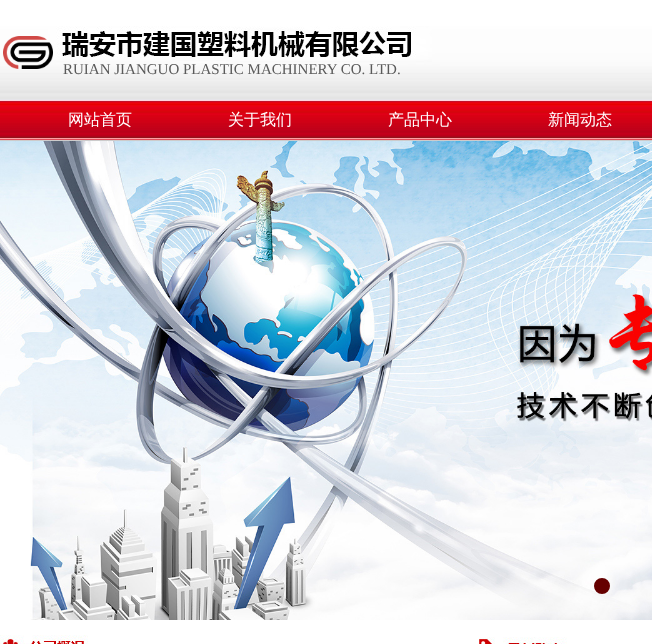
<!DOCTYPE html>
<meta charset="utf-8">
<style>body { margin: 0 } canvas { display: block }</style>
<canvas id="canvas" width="652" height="644"></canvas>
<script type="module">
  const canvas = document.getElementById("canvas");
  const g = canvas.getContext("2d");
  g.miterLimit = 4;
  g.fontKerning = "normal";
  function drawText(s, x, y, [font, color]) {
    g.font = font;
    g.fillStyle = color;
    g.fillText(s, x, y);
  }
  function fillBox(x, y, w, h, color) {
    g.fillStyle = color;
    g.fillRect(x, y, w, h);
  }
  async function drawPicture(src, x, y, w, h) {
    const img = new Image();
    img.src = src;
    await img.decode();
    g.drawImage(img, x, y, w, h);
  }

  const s1 = ["15px Liberation Serif", "#5A5A5A"];
  const s2 = ["500 16px WenQuanYi Zen Hei", "#FFFFFF"];

  fillBox(0, 0, 652, 644, "#FFFFFF");
  await drawPicture("pic1.png", 0, 26, 652, 67);
  await drawPicture("pic2.png", 3, 36, 50, 33);
  await drawPicture("pic3.png", 0, 93, 652, 6);
  drawText("RUIAN JIANGUO PLASTIC MACHINERY CO. LTD.", 63, 74, s1);
  await drawPicture("pic4.png", 0, 99, 652, 41);
  drawText("网站首页", 68, 125, s2);
  drawText("关于我们", 228, 125, s2);
  drawText("产品中心", 388, 125, s2);
  drawText("新闻动态", 548, 125, s2);
  fillBox(0, 140, 652, 1, "#CCCCCC");
  await drawPicture("pic5.png", 0, 141, 652, 479);
  g.fillStyle = "#660000";
  g.beginPath();
  g.arc(602, 586, 7, 0, Math.PI * 2);
  g.fill();
  g.strokeStyle = "#660000";
  g.lineWidth = 2;
  g.stroke();
  await drawPicture("pic6.png", 0, 635, 88, 9);
  await drawPicture("pic7.png", 479, 637, 88, 7);
</script>
